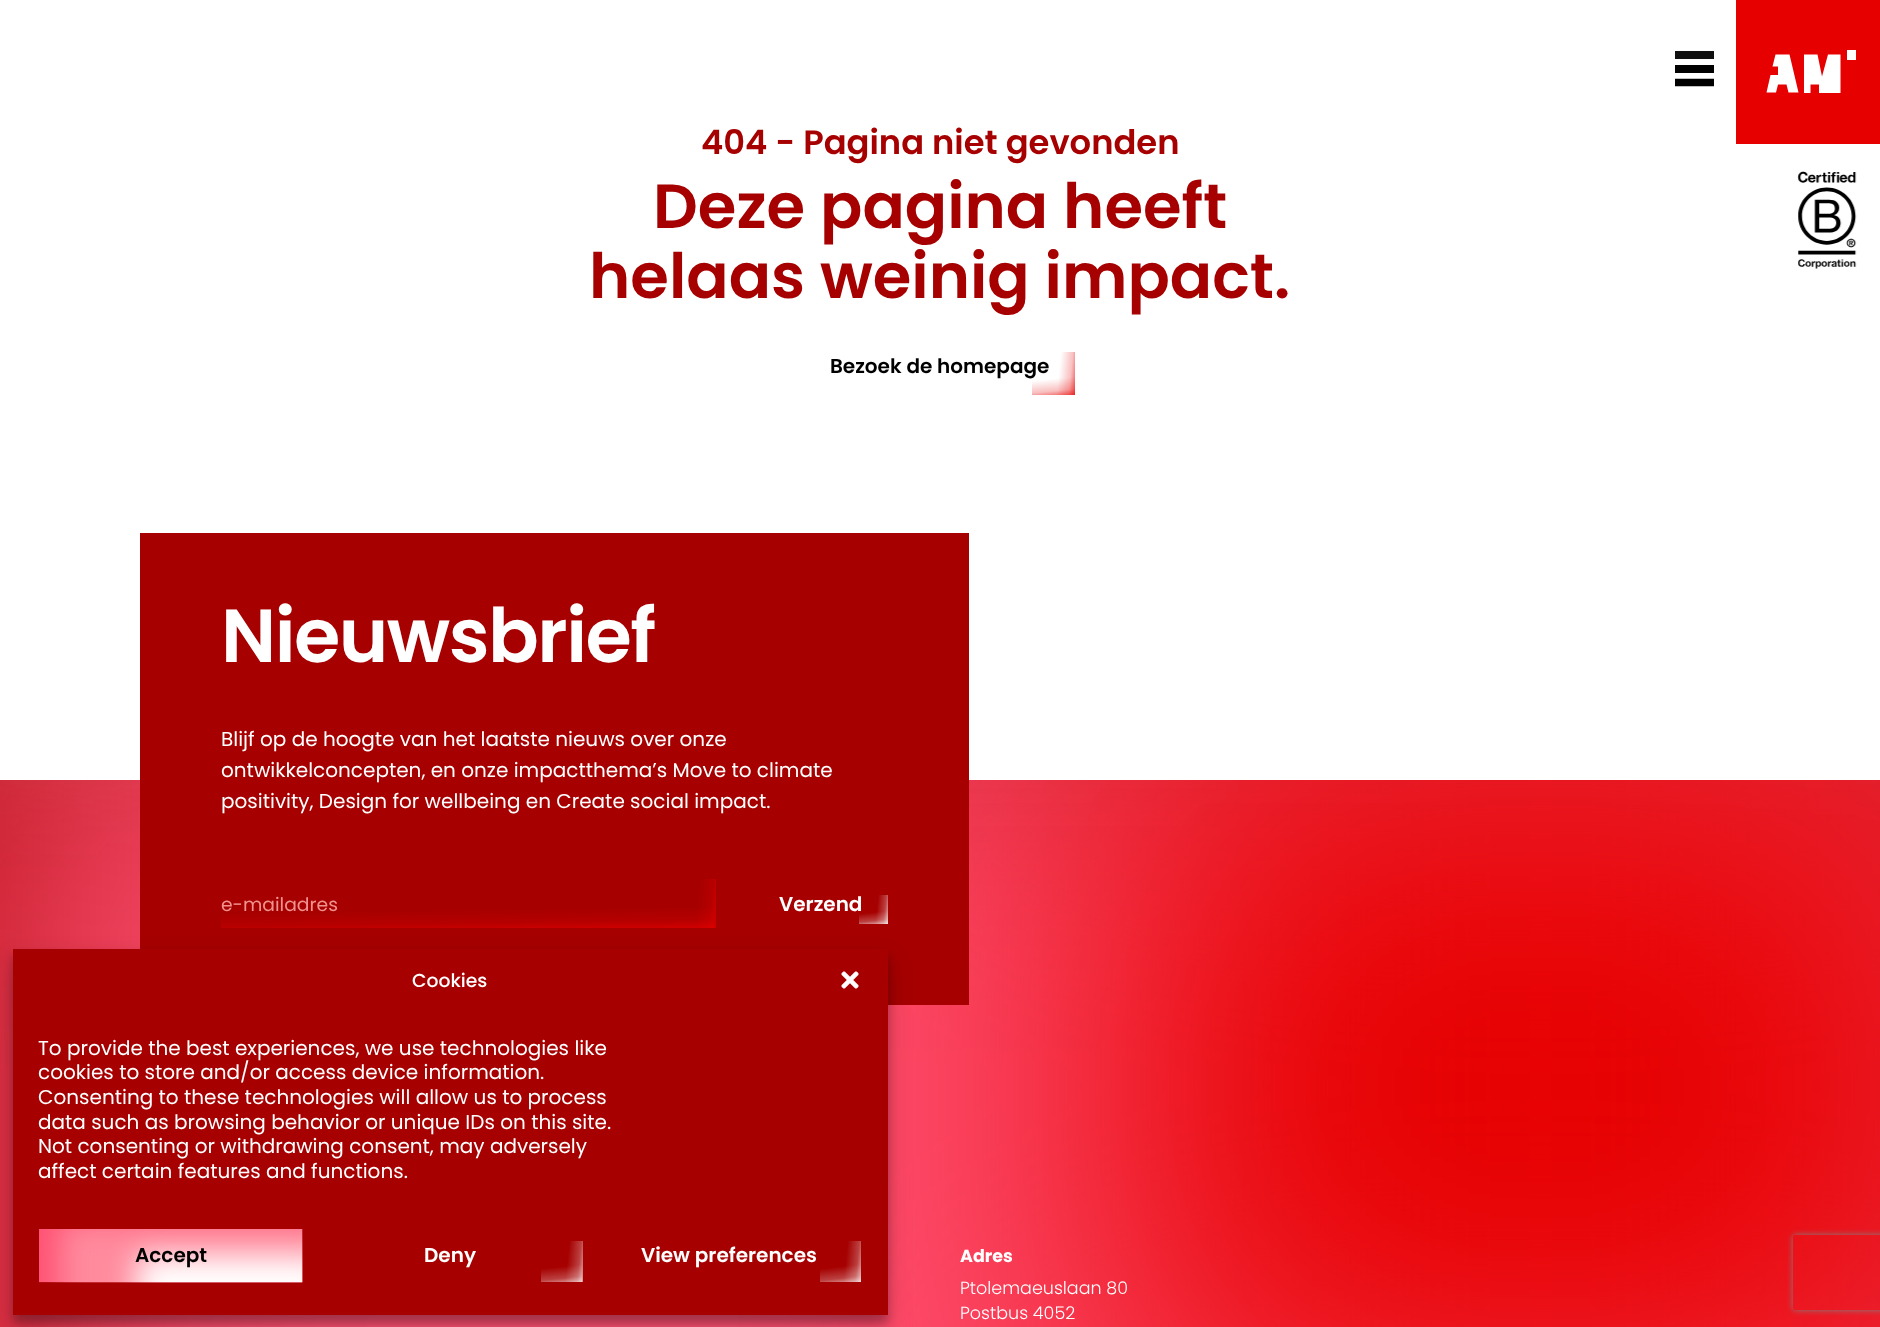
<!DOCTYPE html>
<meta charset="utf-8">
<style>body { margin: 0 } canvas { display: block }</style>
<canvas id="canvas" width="1880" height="1327"></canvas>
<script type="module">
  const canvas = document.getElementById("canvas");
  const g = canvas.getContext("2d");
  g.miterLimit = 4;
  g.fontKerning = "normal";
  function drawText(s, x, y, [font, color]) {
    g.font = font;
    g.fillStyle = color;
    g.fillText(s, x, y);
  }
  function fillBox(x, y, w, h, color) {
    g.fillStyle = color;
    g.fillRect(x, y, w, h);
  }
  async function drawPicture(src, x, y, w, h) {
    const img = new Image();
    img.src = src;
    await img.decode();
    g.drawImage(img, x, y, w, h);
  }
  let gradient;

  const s1 = ["600 33.75px Poppins", "#A60000"];
  const s2 = ["600 62.5px Poppins", "#A60000"];
  const s3 = ["600 20px Poppins", "#000000"];
  const s4 = ["600 75px Poppins", "#FFFFFF"];
  const s5 = ["20px Poppins", "#FFFFFF"];
  const s6 = ["18.75px Poppins", "#F09390"];
  const s7 = ["600 20px Poppins", "#FFFFFF"];
  const s8 = ["bold 17.5px Poppins", "#FFFFFF"];
  const s9 = ["300 17.5px Poppins", "#FFFFFF"];
  const s10 = ["500 18.75px Poppins", "#FFFFFF"];

  fillBox(0, 0, 1880, 1327, "#FFFFFF");
  drawText("404 - Pagina niet gevonden", 701, 154, s1);
  drawText("Deze pagina heeft", 653, 228, s2);
  drawText("helaas weinig impact.", 589, 298, s2);
  gradient = g.createLinearGradient(1055, 403, 1048, 336);
  gradient.addColorStop(0, "#E60000");
  gradient.addColorStop(0.18, "#F9BFBF");
  gradient.addColorStop(0.36, "#FFFFFF");
  g.fillStyle = gradient;
  g.fillRect(1032, 377, 43, 18);
  gradient = g.createLinearGradient(1083, 375, 1016, 368);
  gradient.addColorStop(0, "#E60000");
  gradient.addColorStop(0.18, "rgba(230, 0, 0, 0.25)");
  gradient.addColorStop(0.36, "rgba(230, 0, 0, 0)");
  g.fillStyle = gradient;
  g.fillRect(1058, 352, 17, 43);
  drawText("Bezoek de homepage", 830, 373, s3);
  await drawPicture("pic1.png", 0, 780, 1880, 547);
  fillBox(140, 533, 829, 472, "#A60000");
  g.letterSpacing = "-1.5px";
  drawText("Nieuwsbrief", 221, 662, s4);
  g.letterSpacing = "0px";
  drawText("Blijf op de hoogte van het laatste nieuws over onze", 221, 746, s5);
  drawText("ontwikkelconcepten, en onze impactthema’s Move to climate", 221, 777, s5);
  drawText("positivity, Design for wellbeing en Create social impact.", 221, 808, s5);
  gradient = g.createLinearGradient(483, 937, 482, 859);
  gradient.addColorStop(0, "#E60000");
  gradient.addColorStop(0.18, "#B60000");
  gradient.addColorStop(0.36, "#A60000");
  g.fillStyle = gradient;
  g.fillRect(221, 908, 493, 20);
  gradient = g.createLinearGradient(725, 905, 647, 897);
  gradient.addColorStop(0, "#E60000");
  gradient.addColorStop(0.18, "rgba(230, 0, 0, 0.25)");
  gradient.addColorStop(0.36, "rgba(230, 0, 0, 0)");
  g.fillStyle = gradient;
  g.fillRect(698, 879, 18, 49);
  drawText("e-mailadres", 221, 911, s6);
  gradient = g.createLinearGradient(874, 929, 869, 883);
  gradient.addColorStop(0, "#FFFFFF");
  gradient.addColorStop(0.18, "#BC4040");
  gradient.addColorStop(0.36, "#A60000");
  g.fillStyle = gradient;
  g.fillRect(859, 911, 29, 13);
  gradient = g.createLinearGradient(893, 910, 848, 905);
  gradient.addColorStop(0, "#FFFFFF");
  gradient.addColorStop(0.18, "rgba(255, 255, 255, 0.25)");
  gradient.addColorStop(0.36, "rgba(255, 255, 255, 0)");
  g.fillStyle = gradient;
  g.fillRect(876, 895, 12, 29);
  drawText("Verzend", 779, 911, s7);
  drawText("Adres", 960, 1262, s8);
  drawText("Ptolemaeuslaan 80", 960, 1294, s9);
  drawText("Postbus 4052", 960, 1319, s9);
  fillBox(1675, 51, 39, 8, "#101010");
  fillBox(1675, 65, 39, 8, "#010101");
  g.beginPath();
  g.moveTo(1675, 82.5);
  g.lineTo(1714, 82.5);
  g.strokeStyle = "#000000";
  g.lineWidth = 7.5;
  g.stroke();
  fillBox(1736, 0, 144, 144, "#E60000");
  g.fillStyle = "#FFFFFF";
  g.beginPath();
  g.moveTo(1789.5, 54.5);
  g.lineTo(1775.5, 54.5);
  g.lineTo(1772.5, 66.5);
  g.lineTo(1778, 66.5);
  g.lineTo(1778, 75);
  g.lineTo(1770.5, 75);
  g.lineTo(1766.5, 92.5);
  g.lineTo(1776, 92.5);
  g.lineTo(1778, 84.5);
  g.lineTo(1786.5, 84.5);
  g.lineTo(1788.5, 92.5);
  g.lineTo(1798.5, 92.5);
  g.closePath();
  g.fill();
  g.beginPath();
  g.moveTo(1828, 54.5);
  g.lineTo(1822, 76.5);
  g.lineTo(1817.5, 54.5);
  g.lineTo(1804, 54.5);
  g.lineTo(1804, 93);
  g.lineTo(1810.5, 93);
  g.lineTo(1810.5, 84.5);
  g.lineTo(1819, 84.5);
  g.lineTo(1819, 93);
  g.lineTo(1840.5, 93);
  g.lineTo(1840.5, 54.5);
  g.closePath();
  g.fill();
  fillBox(1847, 50, 9, 10, "#FFFFFF");
  await drawPicture("pic2.png", 1797, 171, 60, 98);
  g.fillStyle = "rgba(0, 0, 0, 0.23)";
  g.filter = "blur(4px)";
  g.beginPath();
  g.rect(13, 956, 875, 367);
  g.fill();
  g.filter = "none";
  g.fillStyle = "rgba(0, 0, 0, 0.19)";
  g.filter = "blur(12.5px)";
  g.beginPath();
  g.rect(13, 961, 875, 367);
  g.fill();
  g.filter = "none";
  fillBox(13, 949, 875, 366, "#A60000");
  drawText("Cookies", 412, 987, s10);
  await drawPicture("pic3.png", 841, 971, 18, 18);
  drawText("To provide the best experiences, we use technologies like", 38, 1055, s5);
  drawText("cookies to store and/or access device information.", 38, 1079, s5);
  drawText("Consenting to these technologies will allow us to process", 38, 1104, s5);
  drawText("data such as browsing behavior or unique IDs on this site.", 38, 1129, s5);
  drawText("Not consenting or withdrawing consent, may adversely", 38, 1153, s5);
  drawText("affect certain features and functions.", 38, 1178, s5);
  await drawPicture("pic4.png", 39, 1229, 264, 54);
  drawText("Accept", 135, 1262, s3);
  gradient = g.createLinearGradient(563, 1290, 556, 1225);
  gradient.addColorStop(0, "#FFFFFF");
  gradient.addColorStop(0.18, "#BC4040");
  gradient.addColorStop(0.36, "#A60000");
  g.fillStyle = gradient;
  g.fillRect(541, 1265, 41, 17);
  gradient = g.createLinearGradient(591, 1263, 525, 1256);
  gradient.addColorStop(0, "#FFFFFF");
  gradient.addColorStop(0.18, "rgba(255, 255, 255, 0.25)");
  gradient.addColorStop(0.36, "rgba(255, 255, 255, 0)");
  g.fillStyle = gradient;
  g.fillRect(566, 1241, 17, 41);
  drawText("Deny", 424, 1262, s7);
  gradient = g.createLinearGradient(842, 1290, 834, 1225);
  gradient.addColorStop(0, "#FFFFFF");
  gradient.addColorStop(0.18, "#BC4040");
  gradient.addColorStop(0.36, "#A60000");
  g.fillStyle = gradient;
  g.fillRect(820, 1264, 41, 18);
  gradient = g.createLinearGradient(869, 1263, 804, 1256);
  gradient.addColorStop(0, "#FFFFFF");
  gradient.addColorStop(0.18, "rgba(255, 255, 255, 0.25)");
  gradient.addColorStop(0.36, "rgba(255, 255, 255, 0)");
  g.fillStyle = gradient;
  g.fillRect(844, 1241, 17, 41);
  drawText("View preferences", 641, 1262, s7);
  g.save();
  g.beginPath();
  g.moveTo(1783, 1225);
  g.lineTo(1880, 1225);
  g.lineTo(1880, 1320);
  g.lineTo(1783, 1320);
  g.closePath();
  g.moveTo(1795.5, 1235);
  g.lineTo(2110.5, 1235);
  g.bezierCurveTo(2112, 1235, 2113, 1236, 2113, 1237.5);
  g.lineTo(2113, 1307.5);
  g.bezierCurveTo(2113, 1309, 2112, 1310, 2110.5, 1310);
  g.lineTo(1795.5, 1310);
  g.bezierCurveTo(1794, 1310, 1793, 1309, 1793, 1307.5);
  g.lineTo(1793, 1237.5);
  g.bezierCurveTo(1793, 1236, 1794, 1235, 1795.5, 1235);
  g.closePath();
  g.clip("evenodd");
  g.fillStyle = "#808080";
  g.filter = "blur(3px)";
  g.beginPath();
  g.roundRect(1793, 1235, 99, 75, 2.5);
  g.fill();
  g.filter = "none";
  g.restore();
</script>
